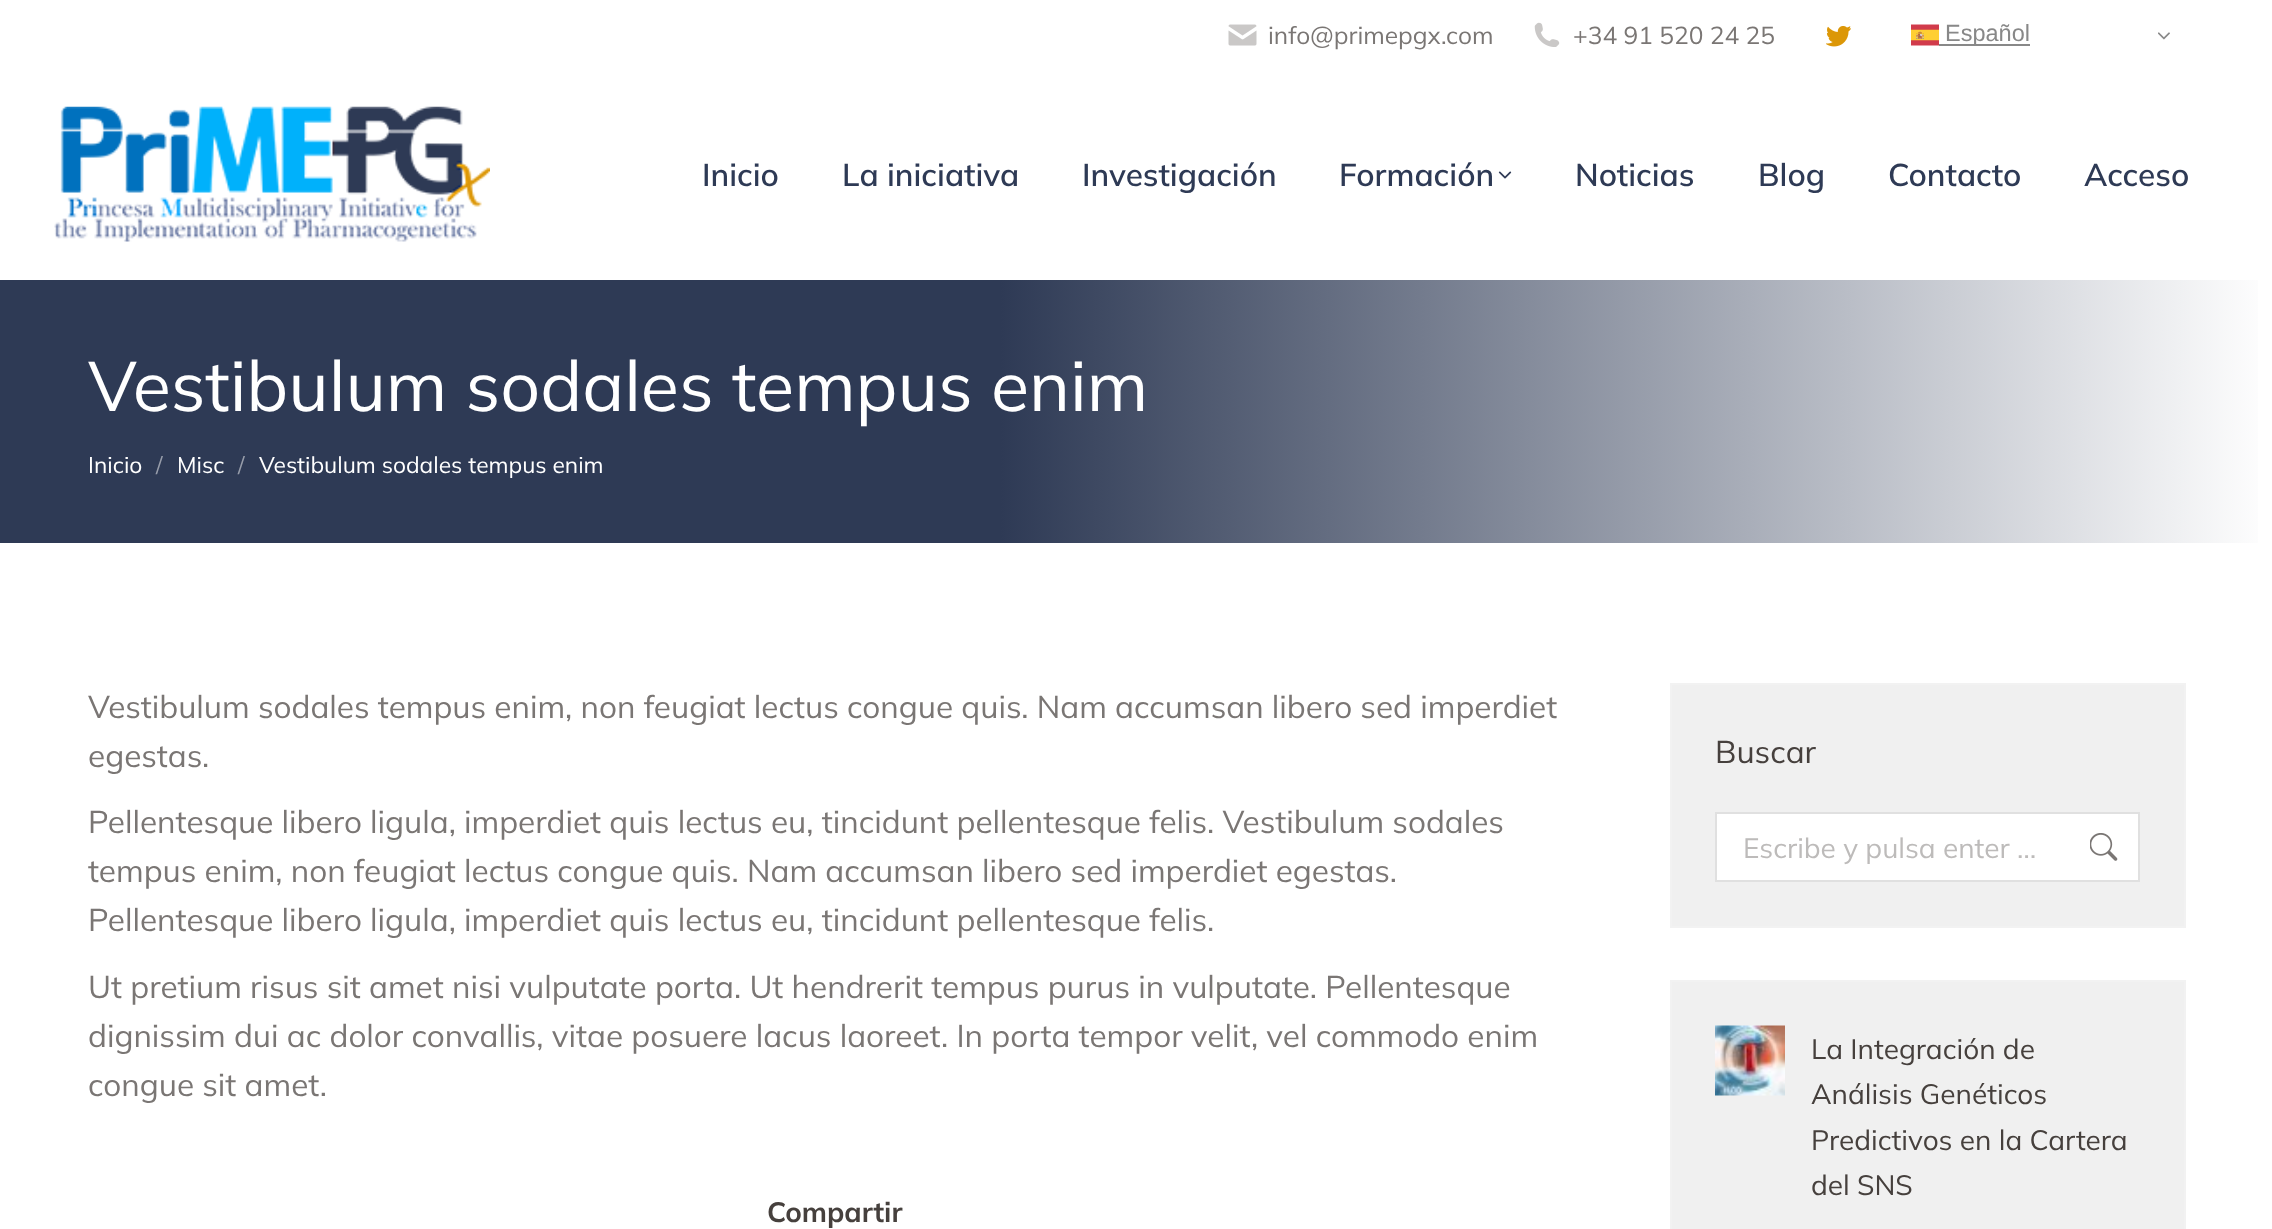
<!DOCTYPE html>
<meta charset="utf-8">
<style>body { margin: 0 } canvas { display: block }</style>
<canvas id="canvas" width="2272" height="1229"></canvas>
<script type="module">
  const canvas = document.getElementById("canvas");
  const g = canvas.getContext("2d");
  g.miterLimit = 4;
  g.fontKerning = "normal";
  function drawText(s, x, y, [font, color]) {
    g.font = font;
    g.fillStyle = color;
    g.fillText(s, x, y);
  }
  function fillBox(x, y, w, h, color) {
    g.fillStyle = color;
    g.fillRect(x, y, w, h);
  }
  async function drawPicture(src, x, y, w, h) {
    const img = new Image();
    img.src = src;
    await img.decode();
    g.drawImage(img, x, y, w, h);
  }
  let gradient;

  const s1 = ["24.5px Mulish", "#7A7674"];
  const s2 = ["23.5px Liberation Sans", "#888888"];
  const s3 = ["600 31.5px Mulish", "#2E3A55"];
  const s4 = ["70px Mulish", "#FFFFFF"];
  const s5 = ["22.75px Mulish", "#FFFFFF"];
  const s6 = ["22.75px Mulish", "#979DAA"];
  const s7 = ["31.5px Mulish", "#7A7674"];
  const s8 = ["bold 28px Mulish", "#46403D"];
  const s9 = ["31.5px Mulish", "#46403D"];
  const s10 = ["28px Mulish", "#BDBBBA"];
  const s11 = ["28px Mulish", "#46403D"];

  fillBox(0, 0, 2272, 1229, "#FFFFFF");
  await drawPicture("pic1.png", 1228, 24, 29, 22);
  drawText("info@primepgx.com", 1268, 44, s1);
  await drawPicture("pic2.png", 1534, 22, 26, 25);
  drawText("+34 91 520 24 25", 1573, 44, s1);
  await drawPicture("pic3.png", 1826, 26, 25, 21);
  await drawPicture("pic4.png", 1911, 24, 28, 22);
  fillBox(1939, 44, 91, 2, "#888888");
  drawText("Español", 1945, 41, s2);
  await drawPicture("pic5.png", 2158, 32, 12, 8);
  await drawPicture("pic6.png", 54, 106, 436, 136);
  drawText("Inicio", 702, 186, s3);
  drawText("La iniciativa", 842, 186, s3);
  drawText("Investigación", 1082, 186, s3);
  drawText("Formación", 1339, 186, s3);
  await drawPicture("pic7.png", 1498, 171, 14, 8);
  drawText("Noticias", 1575, 186, s3);
  drawText("Blog", 1758, 186, s3);
  drawText("Contacto", 1888, 186, s3);
  drawText("Acceso", 2084, 186, s3);
  gradient = g.createLinearGradient(0, 411, 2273, 411);
  gradient.addColorStop(0.44, "#2E3A55");
  gradient.addColorStop(1, "#FFFFFF");
  g.fillStyle = gradient;
  g.fillRect(0, 280, 2258, 263);
  drawText("Vestibulum sodales tempus enim", 88, 411, s4);
  drawText("Inicio", 88, 473, s5);
  drawText("/", 156, 473, s6);
  drawText("Misc", 177, 473, s5);
  drawText("/", 238, 473, s6);
  drawText("Vestibulum sodales tempus enim", 259, 473, s5);
  drawText("Vestibulum sodales tempus enim, non feugiat lectus congue quis. Nam accumsan libero sed imperdiet", 88, 718, s7);
  drawText("egestas.", 88, 767, s7);
  drawText("Pellentesque libero ligula, imperdiet quis lectus eu, tincidunt pellentesque felis. Vestibulum sodales", 88, 833, s7);
  drawText("tempus enim, non feugiat lectus congue quis. Nam accumsan libero sed imperdiet egestas.", 88, 882, s7);
  drawText("Pellentesque libero ligula, imperdiet quis lectus eu, tincidunt pellentesque felis.", 88, 931, s7);
  drawText("Ut pretium risus sit amet nisi vulputate porta. Ut hendrerit tempus purus in vulputate. Pellentesque", 88, 998, s7);
  drawText("dignissim dui ac dolor convallis, vitae posuere lacus laoreet. In porta tempor velit, vel commodo enim", 88, 1047, s7);
  drawText("congue sit amet.", 88, 1096, s7);
  drawText("Compartir", 767, 1222, s8);
  g.fillStyle = "#F0F0F0";
  g.beginPath();
  g.rect(1671, 684, 514, 243);
  g.fill();
  g.strokeStyle = "#F2F2F2";
  g.lineWidth = 2;
  g.stroke();
  drawText("Buscar", 1715, 763, s9);
  g.fillStyle = "#FFFFFF";
  g.beginPath();
  g.rect(1716, 813, 423, 68);
  g.fill();
  g.strokeStyle = "#E0E0E0";
  g.stroke();
  drawText("Escribe y pulsa enter …", 1743, 858, s10);
  await drawPicture("pic8.png", 2090, 833, 28, 28);
  g.fillStyle = "#F0F0F0";
  g.beginPath();
  g.rect(1671, 981, 514, 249);
  g.fill();
  g.strokeStyle = "#F2F2F2";
  g.stroke();
  await drawPicture("pic9.png", 1715, 1025, 70, 71);
  drawText("La Integración de", 1811, 1059, s11);
  drawText("Análisis Genéticos", 1811, 1104, s11);
  drawText("Predictivos en la Cartera", 1811, 1150, s11);
  drawText("del SNS", 1811, 1195, s11);
</script>
